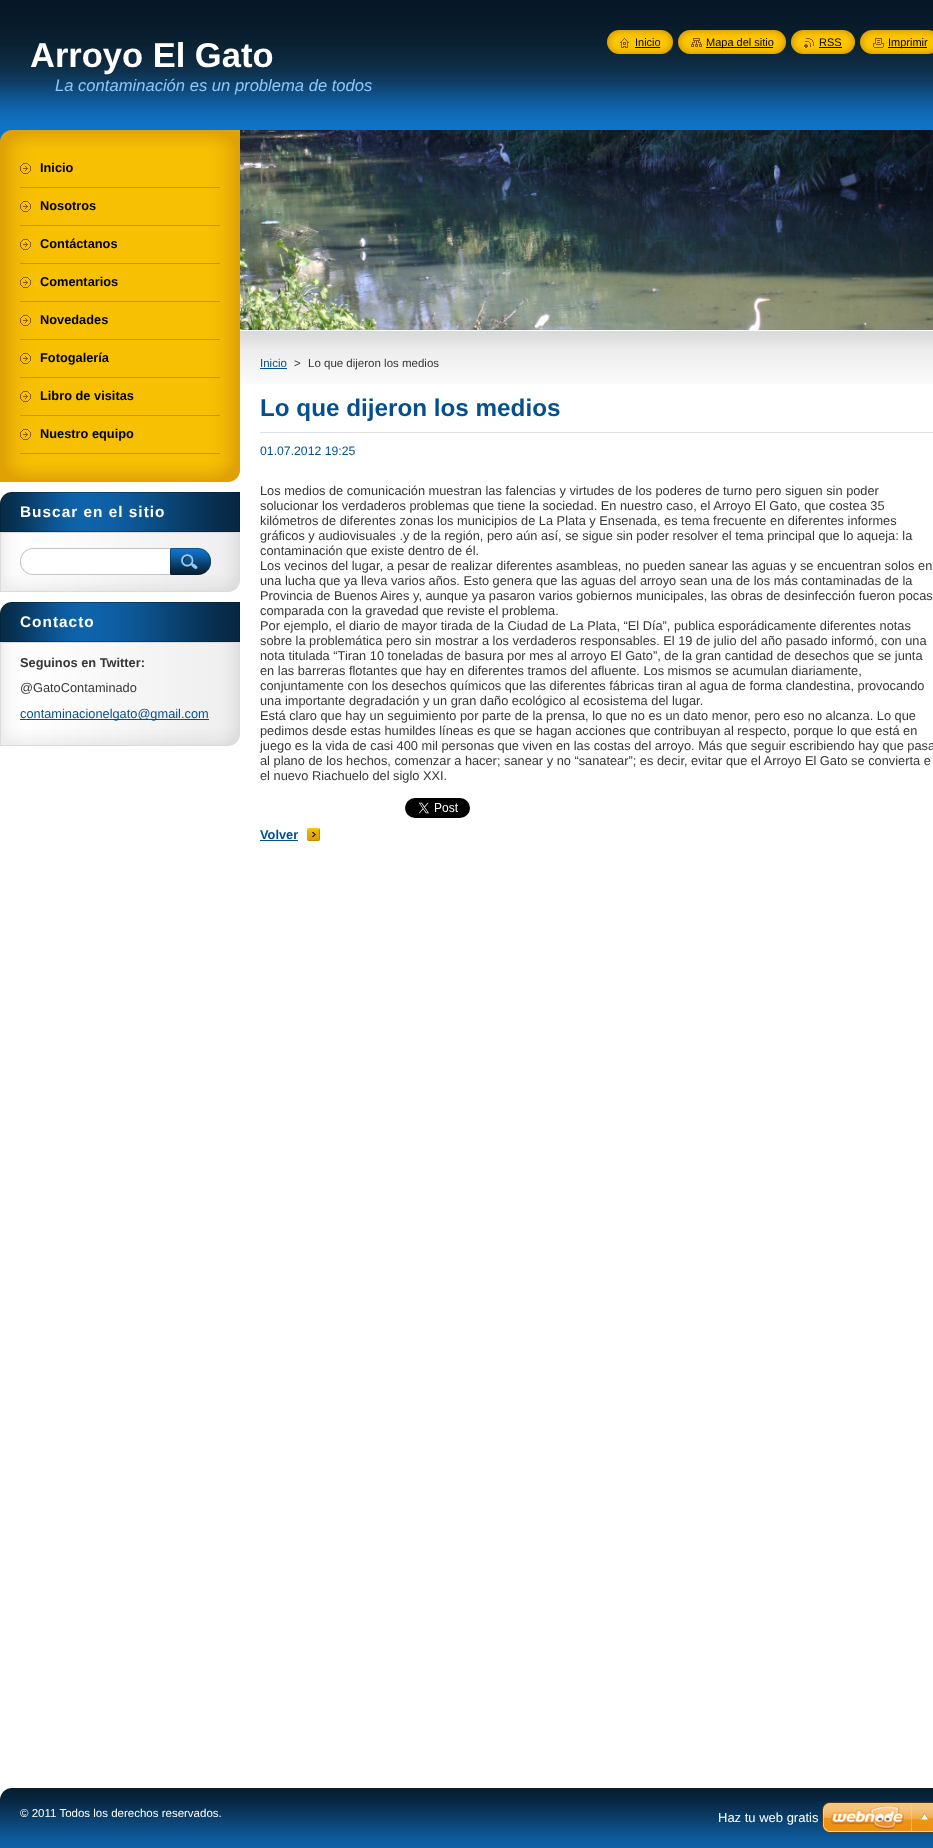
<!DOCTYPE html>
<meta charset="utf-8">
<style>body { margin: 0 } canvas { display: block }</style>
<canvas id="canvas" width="933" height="1848"></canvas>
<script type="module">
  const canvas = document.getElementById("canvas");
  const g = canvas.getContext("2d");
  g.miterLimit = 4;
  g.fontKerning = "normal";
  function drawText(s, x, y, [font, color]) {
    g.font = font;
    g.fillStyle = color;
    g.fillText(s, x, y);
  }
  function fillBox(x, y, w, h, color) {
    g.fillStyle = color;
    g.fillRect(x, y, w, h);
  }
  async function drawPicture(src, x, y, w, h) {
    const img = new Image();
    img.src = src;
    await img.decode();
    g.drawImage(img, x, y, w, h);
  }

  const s1 = ["bold 34.5px Liberation Sans", "#FFFFFF"];
  const s2 = ["italic 16.6px Liberation Sans", "#8CC8FB"];
  const s3 = ["11px Liberation Sans", "#000000"];
  const s4 = ["bold 12.8px Liberation Sans", "#000000"];
  const s5 = ["bold 15.4px Liberation Sans", "#FFFFFF"];
  const s6 = ["bold 12.8px Liberation Sans", "#363636"];
  const s7 = ["12.8px Liberation Sans", "#363636"];
  const s8 = ["12.8px Liberation Sans", "#054F8F"];
  const s9 = ["11.5px Liberation Sans", "#054F8F"];
  const s10 = ["11.5px Liberation Sans", "#363636"];
  const s11 = ["bold 24.25px Liberation Sans", "#054F8F"];
  const s12 = ["12.25px Liberation Sans", "#054F8F"];
  const s13 = ["bold 12.8px Liberation Sans", "#054F8F"];
  const s14 = ["11.5px Liberation Sans", "#FFFFFF"];
  const s15 = ["13px Liberation Sans", "#FFFFFF"];

  fillBox(0, 0, 933, 1848, "#FFFFFF");
  await drawPicture("pic1.png", 0, 0, 933, 384);
  drawText("Arroyo El Gato", 30, 67, s1);
  drawText("La contaminación es un problema de todos", 55, 91, s2);
  await drawPicture("pic2.png", 607, 30, 13, 24);
  await drawPicture("pic3.png", 620, 30, 53, 24);
  await drawPicture("pic4.png", 620, 38, 9, 10);
  drawText("Inicio", 635, 46, s3);
  fillBox(635, 47, 25, 1, "#000000");
  await drawPicture("pic2.png", 678, 30, 13, 24);
  await drawPicture("pic5.png", 691, 30, 95, 24);
  await drawPicture("pic6.png", 691, 38, 11, 9);
  fillBox(706, 47, 67, 1, "#000000");
  drawText("Mapa del sitio", 706, 46, s3);
  await drawPicture("pic2.png", 791, 30, 13, 24);
  await drawPicture("pic7.png", 804, 30, 51, 24);
  await drawPicture("pic8.png", 804, 38, 10, 10);
  drawText("RSS", 819, 46, s3);
  fillBox(819, 47, 23, 1, "#000000");
  await drawPicture("pic2.png", 860, 30, 13, 24);
  await drawPicture("pic9.png", 873, 30, 60, 24);
  await drawPicture("pic10.png", 873, 38, 11, 10);
  fillBox(888, 47, 39, 1, "#000000");
  drawText("Imprimir", 888, 46, s3);
  await drawPicture("pic11.png", 0, 130, 240, 20);
  await drawPicture("pic12.png", 0, 462, 240, 20);
  await drawPicture("pic13.png", 0, 150, 240, 312);
  fillBox(20, 187, 200, 1, "#CE9100");
  await drawPicture("pic14.png", 20, 163, 11, 11);
  drawText("Inicio", 40, 172, s4);
  fillBox(20, 225, 200, 1, "#CE9100");
  await drawPicture("pic14.png", 20, 201, 11, 11);
  drawText("Nosotros", 40, 210, s4);
  fillBox(20, 263, 200, 1, "#CE9100");
  await drawPicture("pic14.png", 20, 239, 11, 11);
  drawText("Contáctanos", 40, 248, s4);
  fillBox(20, 301, 200, 1, "#CE9100");
  await drawPicture("pic14.png", 20, 277, 11, 11);
  drawText("Comentarios", 40, 286, s4);
  fillBox(20, 339, 200, 1, "#CE9100");
  await drawPicture("pic14.png", 20, 315, 11, 11);
  drawText("Novedades", 40, 324, s4);
  fillBox(20, 377, 200, 1, "#CE9100");
  await drawPicture("pic14.png", 20, 353, 11, 11);
  drawText("Fotogalería", 40, 362, s4);
  fillBox(20, 415, 200, 1, "#CE9100");
  await drawPicture("pic14.png", 20, 391, 11, 11);
  drawText("Libro de visitas", 40, 400, s4);
  fillBox(20, 453, 200, 1, "#CE9100");
  await drawPicture("pic14.png", 20, 429, 11, 11);
  drawText("Nuestro equipo", 40, 438, s4);
  await drawPicture("pic15.png", 0, 575, 240, 17);
  await drawPicture("pic16.png", 0, 492, 240, 40);
  g.letterSpacing = "1px";
  drawText("Buscar en el sitio", 20, 517, s5);
  await drawPicture("pic17.png", 0, 533, 240, 42);
  fillBox(0, 532, 240, 1, "#DBDBDB");
  await drawPicture("pic18.png", 20, 548, 150, 27);
  await drawPicture("pic19.png", 170, 548, 41, 27);
  await drawPicture("pic15.png", 0, 729, 240, 17);
  await drawPicture("pic16.png", 0, 602, 240, 40);
  drawText("Contacto", 20, 627, s5);
  await drawPicture("pic20.png", 0, 643, 240, 86);
  fillBox(0, 642, 240, 1, "#DBDBDB");
  g.letterSpacing = "0px";
  drawText("Seguinos en Twitter:", 20, 667, s6);
  drawText("@GatoContaminado", 20, 692, s7);
  fillBox(20, 719, 189, 1, "#054F8F");
  drawText("contaminacionelgato@gmail.com", 20, 718, s8);
  await drawPicture("pic21.png", 240, 130, 693, 200);
  drawText("Inicio", 260, 367, s9);
  fillBox(260, 368, 27, 1, "#054F8F");
  drawText(">", 294, 367, s10);
  drawText("Lo que dijeron los medios", 308, 367, s10);
  fillBox(260, 432, 673, 1, "#E1E1E1");
  drawText("Lo que dijeron los medios", 260, 416, s11);
  drawText("01.07.2012 19:25", 260, 455, s12);
  drawText("Los medios de comunicación muestran las falencias y virtudes de los poderes de turno pero siguen sin poder", 260, 495, s7);
  drawText("solucionar los verdaderos problemas que tiene la sociedad. En nuestro caso, el Arroyo El Gato, que costea 35", 260, 510, s7);
  drawText("kilómetros de diferentes zonas los municipios de La Plata y Ensenada, es tema frecuente en diferentes informes", 260, 525, s7);
  drawText("gráficos y audiovisuales .y de la región, pero aún así, se sigue sin poder resolver el tema principal que lo aqueja: la", 260, 540, s7);
  drawText("contaminación que existe dentro de él.", 260, 555, s7);
  drawText("Los vecinos del lugar, a pesar de realizar diferentes asambleas, no pueden sanear las aguas y se encuentran solos en", 260, 570, s7);
  drawText("una lucha que ya lleva varios años. Esto genera que las aguas del arroyo sean una de los más contaminadas de la", 260, 585, s7);
  drawText("Provincia de Buenos Aires y, aunque ya pasaron varios gobiernos municipales, las obras de desinfección fueron pocas", 260, 600, s7);
  drawText("comparada con la gravedad que reviste el problema.", 260, 615, s7);
  drawText("Por ejemplo, el diario de mayor tirada de la Ciudad de La Plata, “El Día”, publica esporádicamente diferentes notas", 260, 630, s7);
  drawText("sobre la problemática pero sin mostrar a los verdaderos responsables. El 19 de julio del año pasado informó, con una", 260, 645, s7);
  drawText("nota titulada “Tiran 10 toneladas de basura por mes al arroyo El Gato”, de la gran cantidad de desechos que se junta", 260, 660, s7);
  drawText("en las barreras flotantes que hay en diferentes tramos del afluente. Los mismos se acumulan diariamente,", 260, 675, s7);
  drawText("conjuntamente con los desechos químicos que las diferentes fábricas tiran al agua de forma clandestina, provocando", 260, 690, s7);
  drawText("una importante degradación y un gran daño ecológico al ecosistema del lugar.", 260, 705, s7);
  drawText("Está claro que hay un seguimiento por parte de la prensa, lo que no es un dato menor, pero eso no alcanza. Lo que", 260, 720, s7);
  drawText("pedimos desde estas humildes líneas es que se hagan acciones que contribuyan al respecto, porque lo que está en", 260, 735, s7);
  drawText("juego es la vida de casi 400 mil personas que viven en las costas del arroyo. Más que seguir escribiendo hay que pasa", 260, 750, s7);
  drawText("al plano de los hechos, comenzar a hacer; sanear y no “sanatear”; es decir, evitar que el Arroyo El Gato se convierta e", 260, 765, s7);
  drawText("el nuevo Riachuelo del siglo XXI.", 260, 780, s7);
  await drawPicture("pic22.png", 405, 798, 65, 20);
  await drawPicture("pic23.png", 307, 828, 13, 13);
  drawText("Volver", 260, 839, s13);
  fillBox(260, 840, 38, 1, "#054F8F");
  await drawPicture("pic24.png", 0, 1788, 933, 60);
  drawText("© 2011 Todos los derechos reservados.", 20, 1817, s14);
  drawText("Haz tu web gratis", 718, 1822, s15);
  await drawPicture("pic25.png", 822, 1802, 111, 31);
</script>
